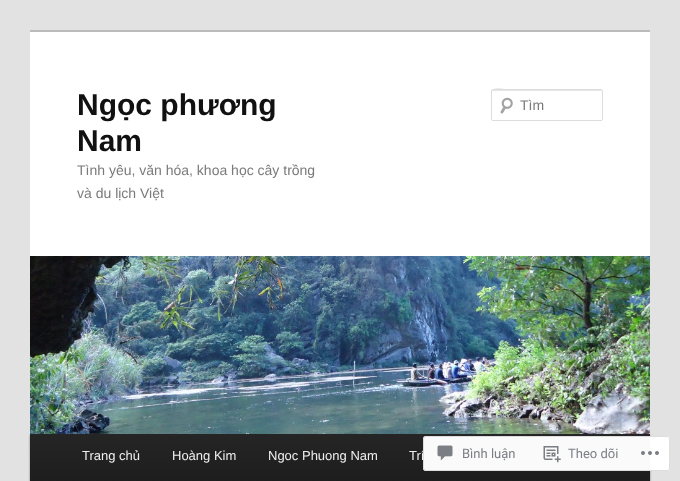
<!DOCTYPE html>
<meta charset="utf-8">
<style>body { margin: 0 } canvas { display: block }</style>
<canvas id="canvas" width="680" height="481"></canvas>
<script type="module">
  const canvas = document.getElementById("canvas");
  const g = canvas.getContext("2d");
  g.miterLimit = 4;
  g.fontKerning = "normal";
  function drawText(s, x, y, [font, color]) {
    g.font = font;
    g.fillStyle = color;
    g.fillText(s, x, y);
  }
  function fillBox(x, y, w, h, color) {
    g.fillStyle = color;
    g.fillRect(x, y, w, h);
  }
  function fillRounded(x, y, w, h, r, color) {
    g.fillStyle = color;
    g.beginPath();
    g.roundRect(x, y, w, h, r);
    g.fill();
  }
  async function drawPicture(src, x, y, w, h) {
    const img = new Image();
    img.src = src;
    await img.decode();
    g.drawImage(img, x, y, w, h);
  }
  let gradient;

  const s1 = ["bold 30px Liberation Sans", "#111111"];
  const s2 = ["14px Liberation Sans", "#7A7A7A"];
  const s3 = ["13px Liberation Sans", "#EEEEEE"];
  const s4 = ["13px Roboto", "#7B7F84"];

  fillBox(0, 0, 680, 481, "#E2E2E2");
  fillBox(30, 32, 620, 224, "#FFFFFF");
  fillBox(30, 30, 620, 2, "#BBBBBB");
  drawText("Ngọc phương", 77, 115, s1);
  drawText("Nam", 77, 151, s1);
  drawText("Tình yêu, văn hóa, khoa học cây trồng", 77, 175, s2);
  drawText("và du lịch Việt", 77, 198, s2);
  await drawPicture("pic1.png", 500, 97, 13, 17);
  g.fillStyle = "#E6E6E6";
  g.beginPath();
  g.moveTo(493, 91);
  g.lineTo(602, 91);
  g.lineTo(602, 92);
  g.lineTo(601, 90);
  g.lineTo(511, 90);
  g.bezierCurveTo(507, 90, 492, 85, 492, 92);
  g.bezierCurveTo(492, 91, 492, 91, 493, 91);
  g.closePath();
  g.fill();
  g.beginPath();
  g.roundRect(491.5, 89.5, 111, 31, 1.5);
  g.strokeStyle = "#DDDDDD";
  g.stroke();
  drawText("Tìm", 520, 110, s2);
  g.fillStyle = "rgba(0, 0, 0, 0.4)";
  g.filter = "blur(1px)";
  g.beginPath();
  g.rect(30, 435, 620, 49);
  g.fill();
  g.filter = "none";
  await drawPicture("pic2.png", 30, 256, 620, 178);
  gradient = g.createLinearGradient(340, 434, 340, 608);
  gradient.addColorStop(0, "#252525");
  gradient.addColorStop(1, "#0A0A0A");
  g.fillStyle = gradient;
  g.fillRect(30, 434, 620, 47);
  drawText("Trang chủ", 82, 460, s3);
  drawText("Hoàng Kim", 172, 460, s3);
  drawText("Ngoc Phuong Nam", 268, 460, s3);
  drawText("Trí", 409, 460, s3);
  fillRounded(423, 436, 247, 35, 3, "rgba(255, 255, 255, 0.98)");
  g.beginPath();
  g.roundRect(423.5, 436.5, 246, 34, 2.5);
  g.strokeStyle = "rgba(220, 220, 222, 0.98)";
  g.stroke();
  await drawPicture("pic3.png", 437, 445, 16, 16);
  drawText("Bình luận", 462, 458, s4);
  await drawPicture("pic4.png", 543, 446, 18, 17);
  drawText("Theo dõi", 568, 458, s4);
  await drawPicture("pic5.png", 641, 451, 18, 4);
</script>
